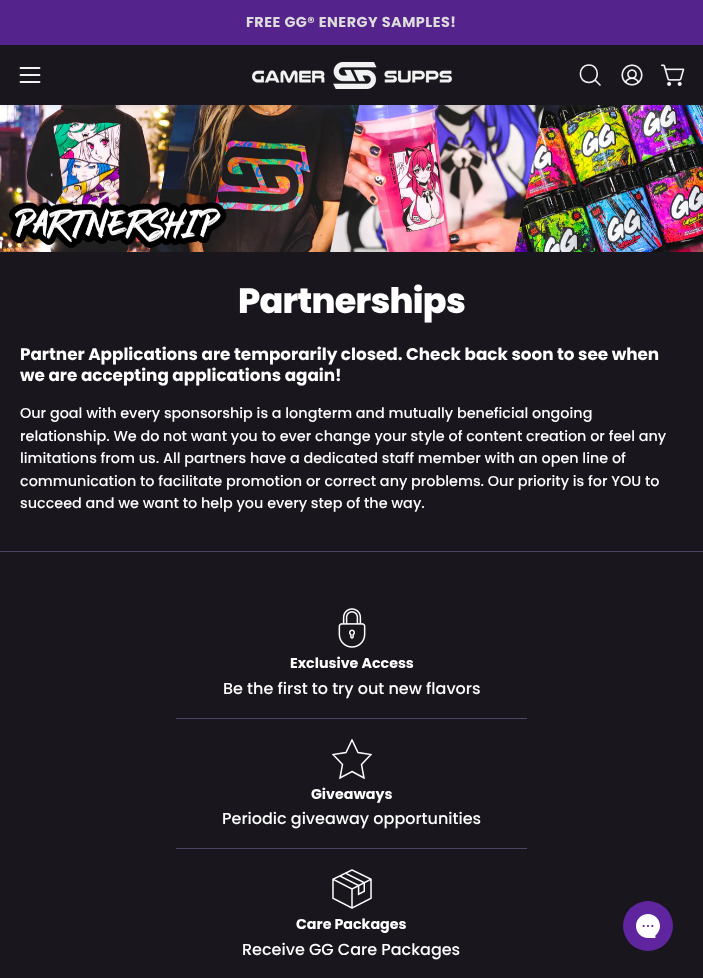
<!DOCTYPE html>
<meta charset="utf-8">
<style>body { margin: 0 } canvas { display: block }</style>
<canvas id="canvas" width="703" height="978"></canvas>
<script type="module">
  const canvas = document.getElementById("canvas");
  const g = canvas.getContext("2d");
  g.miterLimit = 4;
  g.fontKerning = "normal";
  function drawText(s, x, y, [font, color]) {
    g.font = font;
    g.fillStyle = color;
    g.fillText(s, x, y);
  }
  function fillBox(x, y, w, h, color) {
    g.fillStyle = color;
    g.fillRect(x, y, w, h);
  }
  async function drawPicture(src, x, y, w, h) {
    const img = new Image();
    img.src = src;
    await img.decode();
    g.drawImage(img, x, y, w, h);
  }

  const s1 = ["bold 14.4px Poppins", "#DDDCDD"];
  const s2 = ["800 35px Poppins", "#FFFFFF"];
  const s3 = ["bold 16.8px Poppins", "#FFFFFF"];
  const s4 = ["500 14.4px Poppins", "#FFFFFF"];
  const s5 = ["bold 14.25px Poppins", "#FFFFFF"];
  const s6 = ["500 16px Poppins", "#FFFFFF"];

  fillBox(0, 0, 703, 978, "#19171D");
  fillBox(0, 0, 703, 45, "#55238C");
  g.letterSpacing = "0.5px";
  drawText("FREE GG® ENERGY SAMPLES!", 246, 27, s1);
  await drawPicture("pic4.png", 0, 105, 703, 147);
  g.save();
  g.beginPath();
  g.rect(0, 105, 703, 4);
  g.clip();
  g.fillStyle = "rgba(100, 116, 130, 0.1)";
  g.filter = "blur(2px)";
  g.beginPath();
  g.rect(0, 47, 703, 60);
  g.fill();
  g.filter = "none";
  g.restore();
  g.beginPath();
  g.moveTo(20.5, 75);
  g.lineTo(39.5, 75);
  g.moveTo(20.5, 68);
  g.lineTo(39.5, 68);
  g.moveTo(20.5, 82);
  g.lineTo(39.5, 82);
  g.strokeStyle = "#F4F3F4";
  g.lineWidth = 1.8;
  g.lineCap = "round";
  g.lineJoin = "round";
  g.stroke();
  await drawPicture("pic1.png", 252, 62, 200, 27);
  g.beginPath();
  g.moveTo(589, 82.5);
  g.bezierCurveTo(600, 82.5, 600, 65, 589, 65);
  g.bezierCurveTo(577.5, 65, 577.5, 82.5, 589, 82.5);
  g.closePath();
  g.moveTo(595, 80);
  g.lineTo(600, 85);
  g.lineWidth = 1.6;
  g.stroke();
  await drawPicture("pic2.png", 621, 64, 22, 22);
  await drawPicture("pic3.png", 661, 64, 24, 22);
  g.letterSpacing = "-0.75px";
  drawText("Partnerships", 238, 313, s2);
  g.letterSpacing = "0px";
  drawText("Partner Applications are temporarily closed. Check back soon to see when", 20, 360, s3);
  drawText("we are accepting applications again!", 20, 381, s3);
  drawText("Our goal with every sponsorship is a longterm and mutually beneficial ongoing", 20, 418, s4);
  drawText("relationship. We do not want you to ever change your style of content creation or feel any", 20, 441, s4);
  drawText("limitations from us. All partners have a dedicated staff member with an open line of", 20, 463, s4);
  drawText("communication to facilitate promotion or correct any problems. Our priority is for YOU to", 20, 486, s4);
  drawText("succeed and we want to help you every step of the way.", 20, 508, s4);
  fillBox(0, 551, 703, 1, "#504466");
  await drawPicture("pic5.png", 338, 608, 28, 40);
  drawText("Exclusive Access", 290, 668, s5);
  drawText("Be the first to try out new flavors", 223, 694, s6);
  fillBox(176, 718, 351, 1, "#504466");
  g.save();
  g.beginPath();
  g.rect(332, 739, 40, 40);
  g.clip();
  g.beginPath();
  g.moveTo(352, 771.5);
  g.lineTo(364, 778);
  g.lineTo(361.5, 764.5);
  g.lineTo(371, 754.5);
  g.lineTo(358, 752.5);
  g.lineTo(352, 740);
  g.lineTo(346, 752.5);
  g.lineTo(333, 754.5);
  g.lineTo(342.5, 764.5);
  g.lineTo(340, 778);
  g.closePath();
  g.strokeStyle = "#FFFFFF";
  g.lineWidth = 1.5;
  g.lineCap = "butt";
  g.lineJoin = "miter";
  g.stroke();
  g.restore();
  drawText("Giveaways", 311, 799, s5);
  drawText("Periodic giveaway opportunities", 222, 824, s6);
  fillBox(176, 848, 351, 1, "#504466");
  await drawPicture("pic6.png", 332, 869, 40, 40);
  drawText("Care Packages", 296, 929, s5);
  drawText("Receive GG Care Packages", 242, 955, s6);
  await drawPicture("pic7.png", 623, 901, 50, 50);
</script>
